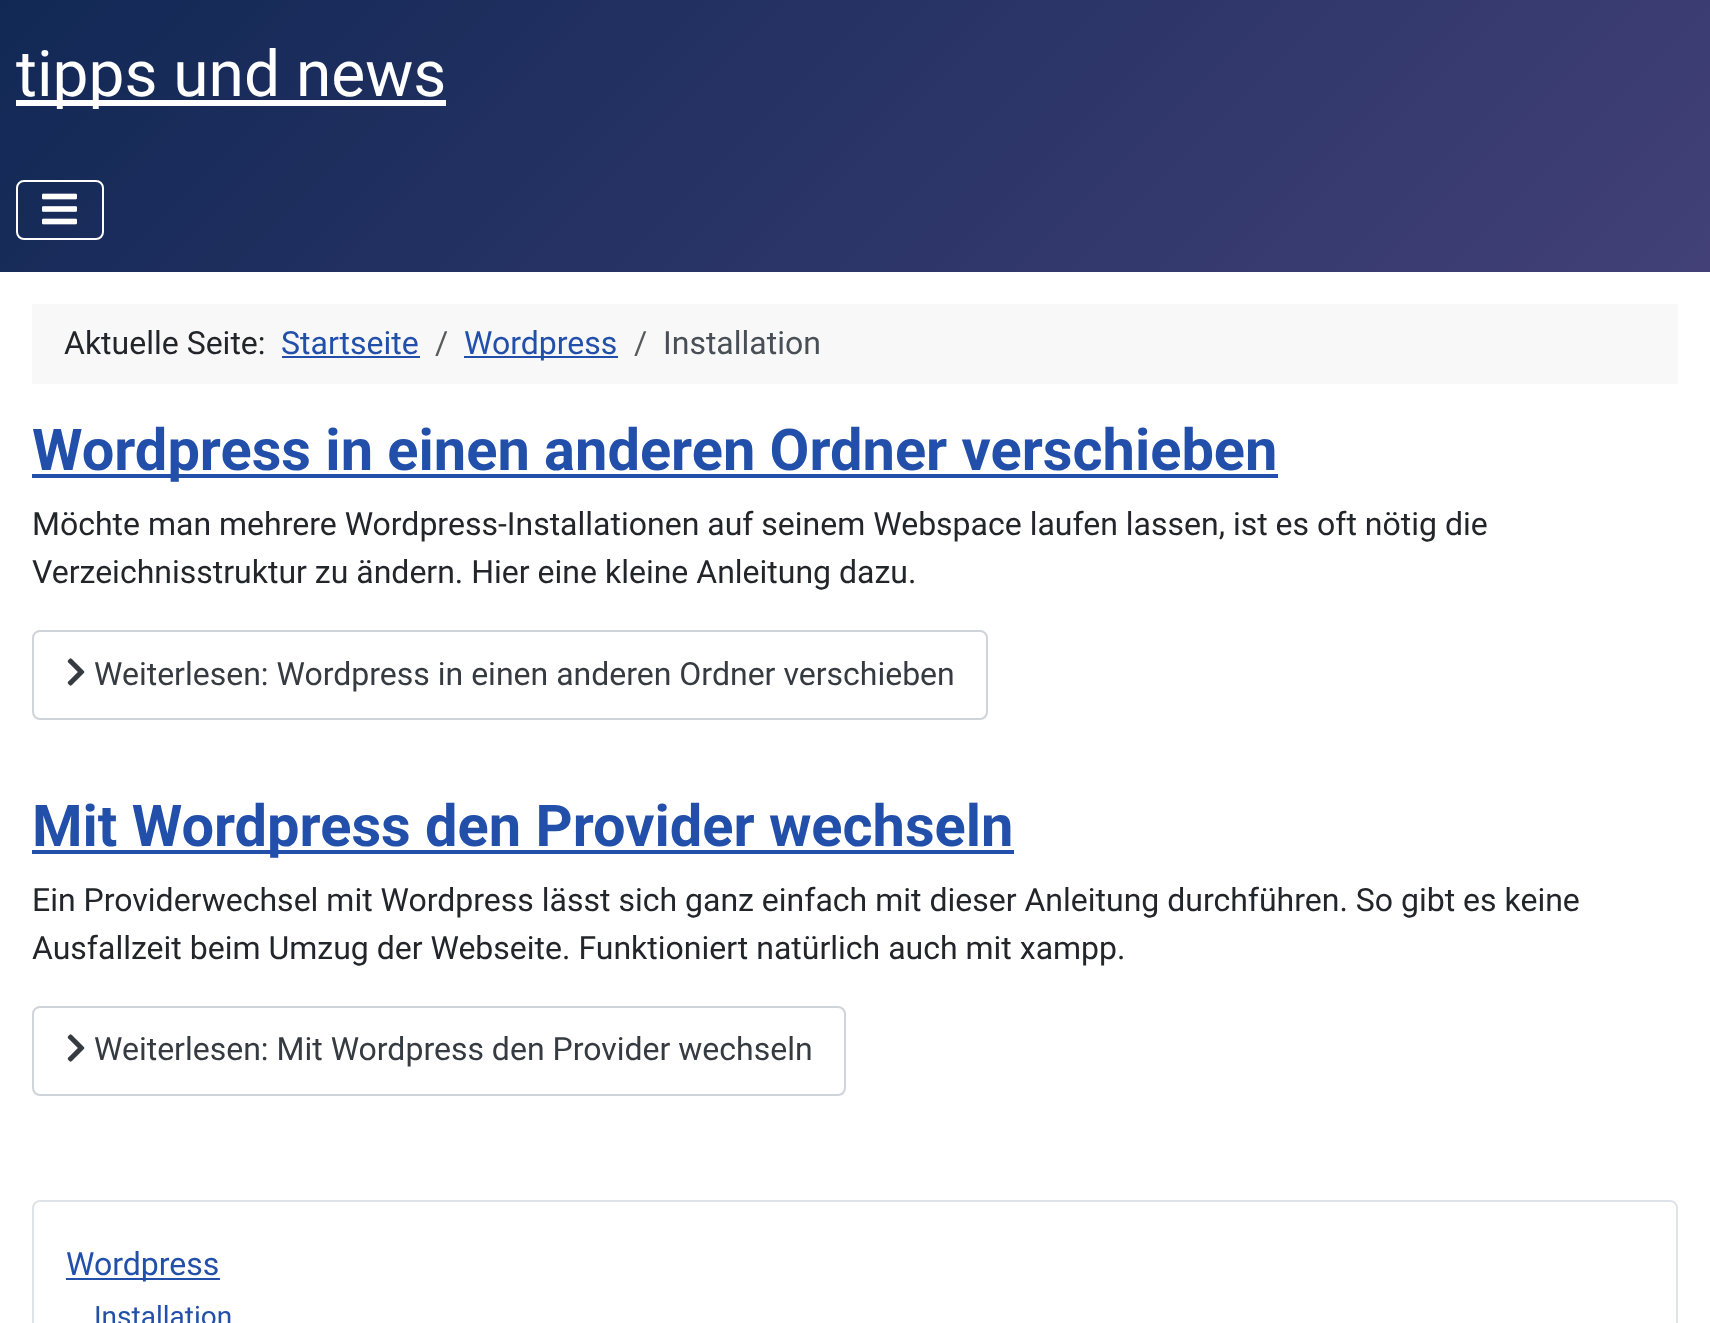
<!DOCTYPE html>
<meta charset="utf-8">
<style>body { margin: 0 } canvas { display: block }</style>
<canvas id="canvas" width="1710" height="1323"></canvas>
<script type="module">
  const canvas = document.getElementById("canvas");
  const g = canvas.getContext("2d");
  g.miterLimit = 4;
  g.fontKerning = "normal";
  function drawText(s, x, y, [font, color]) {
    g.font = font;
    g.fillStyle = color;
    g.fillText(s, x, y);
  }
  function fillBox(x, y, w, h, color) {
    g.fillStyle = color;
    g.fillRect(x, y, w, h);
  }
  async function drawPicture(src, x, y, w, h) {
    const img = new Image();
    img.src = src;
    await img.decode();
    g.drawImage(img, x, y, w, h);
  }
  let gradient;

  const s1 = ["64px Roboto", "#FFFFFF"];
  const s2 = ["32px Roboto", "#22262A"];
  const s3 = ["32px Roboto", "#224FAA"];
  const s4 = ["32px Roboto", "#585B5E"];
  const s5 = ["32px Roboto", "#484F56"];
  const s6 = ["bold 57.75px Roboto", "#224FAA"];
  const s7 = ["32px Roboto", "#353B41"];
  const s8 = ["28px Roboto", "#224FAA"];

  fillBox(0, 0, 1710, 1323, "#FFFFFF");
  gradient = g.createLinearGradient(360, -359, 1351, 632);
  gradient.addColorStop(0, "#112855");
  gradient.addColorStop(1, "#424077");
  g.fillStyle = gradient;
  g.fillRect(0, 0, 1710, 272);
  fillBox(16, 100, 430, 6, "#FFFFFF");
  drawText("tipps und news", 16, 96, s1);
  g.beginPath();
  g.roundRect(17, 181, 86, 58, 7);
  g.strokeStyle = "#FFFFFF";
  g.lineWidth = 2;
  g.stroke();
  await drawPicture("pic1.png", 42, 193, 35, 32);
  fillBox(32, 304, 1646, 80, "#F8F8F8");
  drawText("Aktuelle Seite:", 64, 354, s2);
  drawText("Startseite", 281, 354, s3);
  fillBox(282, 356, 138, 2, "#224FAA");
  drawText("/", 435, 354, s4);
  fillBox(464, 356, 154, 2, "#224FAA");
  drawText("Wordpress", 464, 354, s3);
  drawText("/", 634, 354, s4);
  drawText("Installation", 663, 354, s5);
  fillBox(32, 474, 1246, 4, "#224FAA");
  drawText("Wordpress in einen anderen Ordner verschieben", 32, 470, s6);
  drawText("Möchte man mehrere Wordpress-Installationen auf seinem Webspace laufen lassen, ist es oft nötig die", 32, 535, s2);
  drawText("Verzeichnisstruktur zu ändern. Hier eine kleine Anleitung dazu.", 32, 583, s2);
  g.beginPath();
  g.roundRect(33, 631, 954, 88, 7);
  g.strokeStyle = "#CED4DA";
  g.stroke();
  await drawPicture("pic2.png", 67, 658, 18, 28);
  drawText("Weiterlesen: Wordpress in einen anderen Ordner verschieben", 94, 685, s7);
  fillBox(32, 850, 982, 4, "#224FAA");
  drawText("Mit Wordpress den Provider wechseln", 32, 846, s6);
  drawText("Ein Providerwechsel mit Wordpress lässt sich ganz einfach mit dieser Anleitung durchführen. So gibt es keine", 32, 911, s2);
  drawText("Ausfallzeit beim Umzug der Webseite. Funktioniert natürlich auch mit xampp.", 32, 959, s2);
  g.beginPath();
  g.roundRect(33, 1007, 812, 88, 7);
  g.stroke();
  await drawPicture("pic2.png", 67, 1034, 18, 28);
  drawText("Weiterlesen: Mit Wordpress den Provider wechseln", 94, 1060, s7);
  g.beginPath();
  g.roundRect(33, 1201, 1644, 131, 7);
  g.strokeStyle = "#DFE3E7";
  g.stroke();
  fillBox(66, 1278, 154, 2, "#224FAA");
  drawText("Wordpress", 66, 1275, s3);
  drawText("Installation", 94, 1326, s8);
</script>
